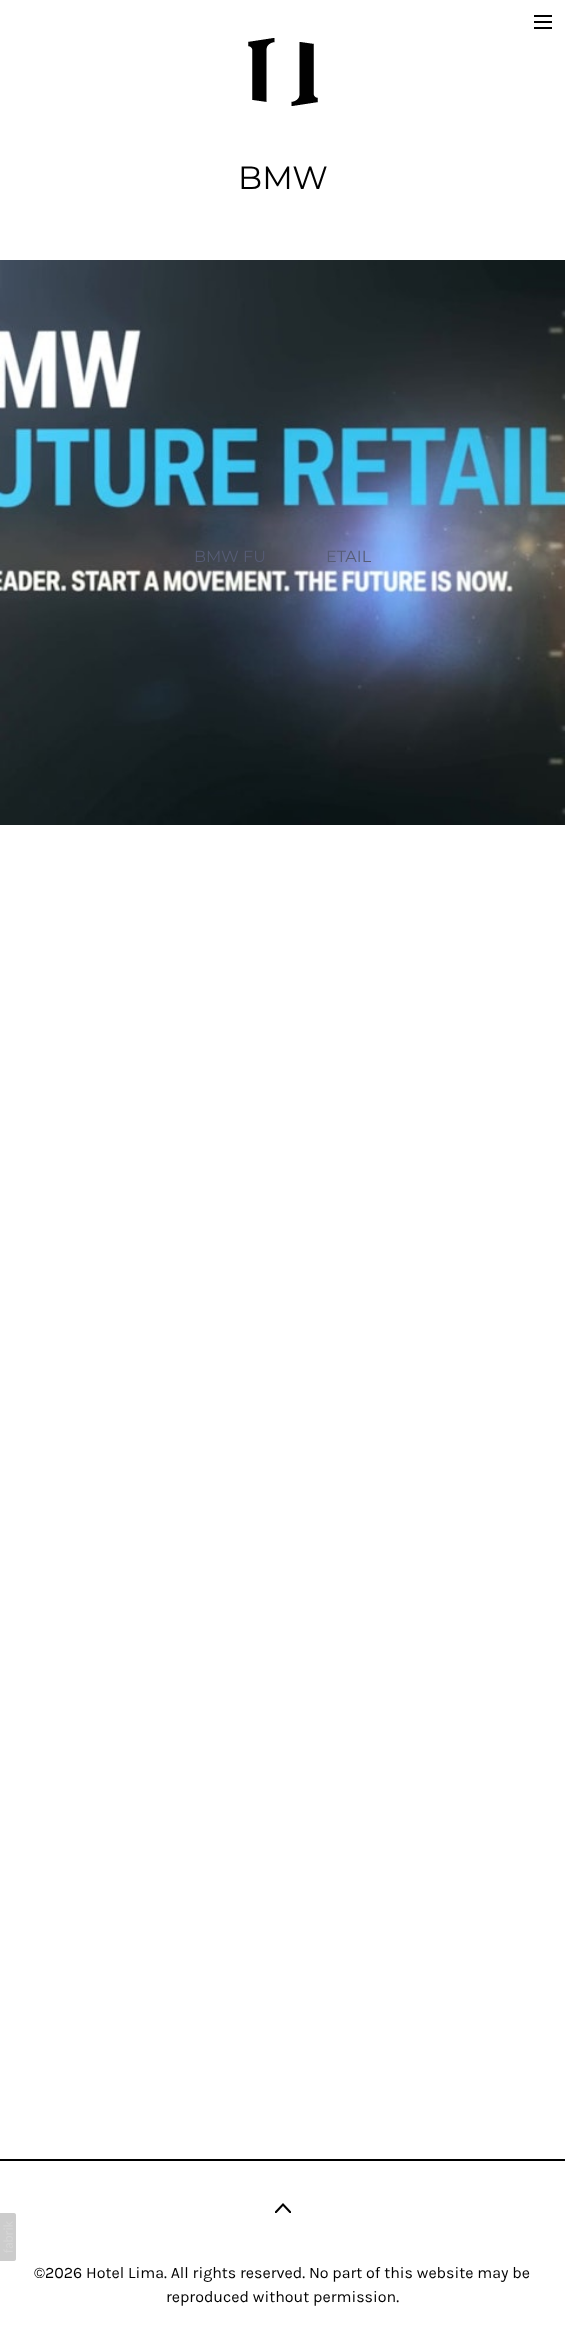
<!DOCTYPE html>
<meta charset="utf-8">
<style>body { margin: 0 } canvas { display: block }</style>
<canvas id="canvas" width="565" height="2337"></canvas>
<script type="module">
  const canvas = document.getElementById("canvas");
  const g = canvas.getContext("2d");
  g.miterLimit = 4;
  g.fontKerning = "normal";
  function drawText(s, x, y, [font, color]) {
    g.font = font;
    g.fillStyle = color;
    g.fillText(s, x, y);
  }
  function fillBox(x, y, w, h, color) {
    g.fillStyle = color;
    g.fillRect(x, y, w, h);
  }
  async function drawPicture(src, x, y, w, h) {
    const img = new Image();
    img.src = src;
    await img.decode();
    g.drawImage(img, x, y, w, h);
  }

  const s1 = ["32px Montserrat", "#000000"];
  const s2 = ["16px Montserrat", "#565C75"];
  const s3 = ["16px Karla", "#000000"];

  fillBox(0, 0, 565, 2337, "#FFFFFF");
  await drawPicture("pic1.png", 0, 2213, 16, 48);
  fillBox(534, 21, 18, 2, "#000000");
  fillBox(534, 15, 18, 2, "#000000");
  fillBox(534, 27, 18, 2, "#000000");
  await drawPicture("pic2.png", 248, 38, 70, 68);
  drawText("BMW", 238, 189, s1);
  await drawPicture("pic3.png", 0, 260, 565, 565);
  drawText("BMW FU", 194, 562, s2);
  drawText("ETAIL", 326, 562, s2);
  fillBox(0, 2159, 565, 2, "#000000");
  await drawPicture("pic4.png", 275, 2203, 16, 10);
  drawText("©2026 Hotel Lima. All rights reserved. No part of this website may be", 34, 2278, s3);
  drawText("reproduced without permission.", 166, 2302, s3);
</script>
